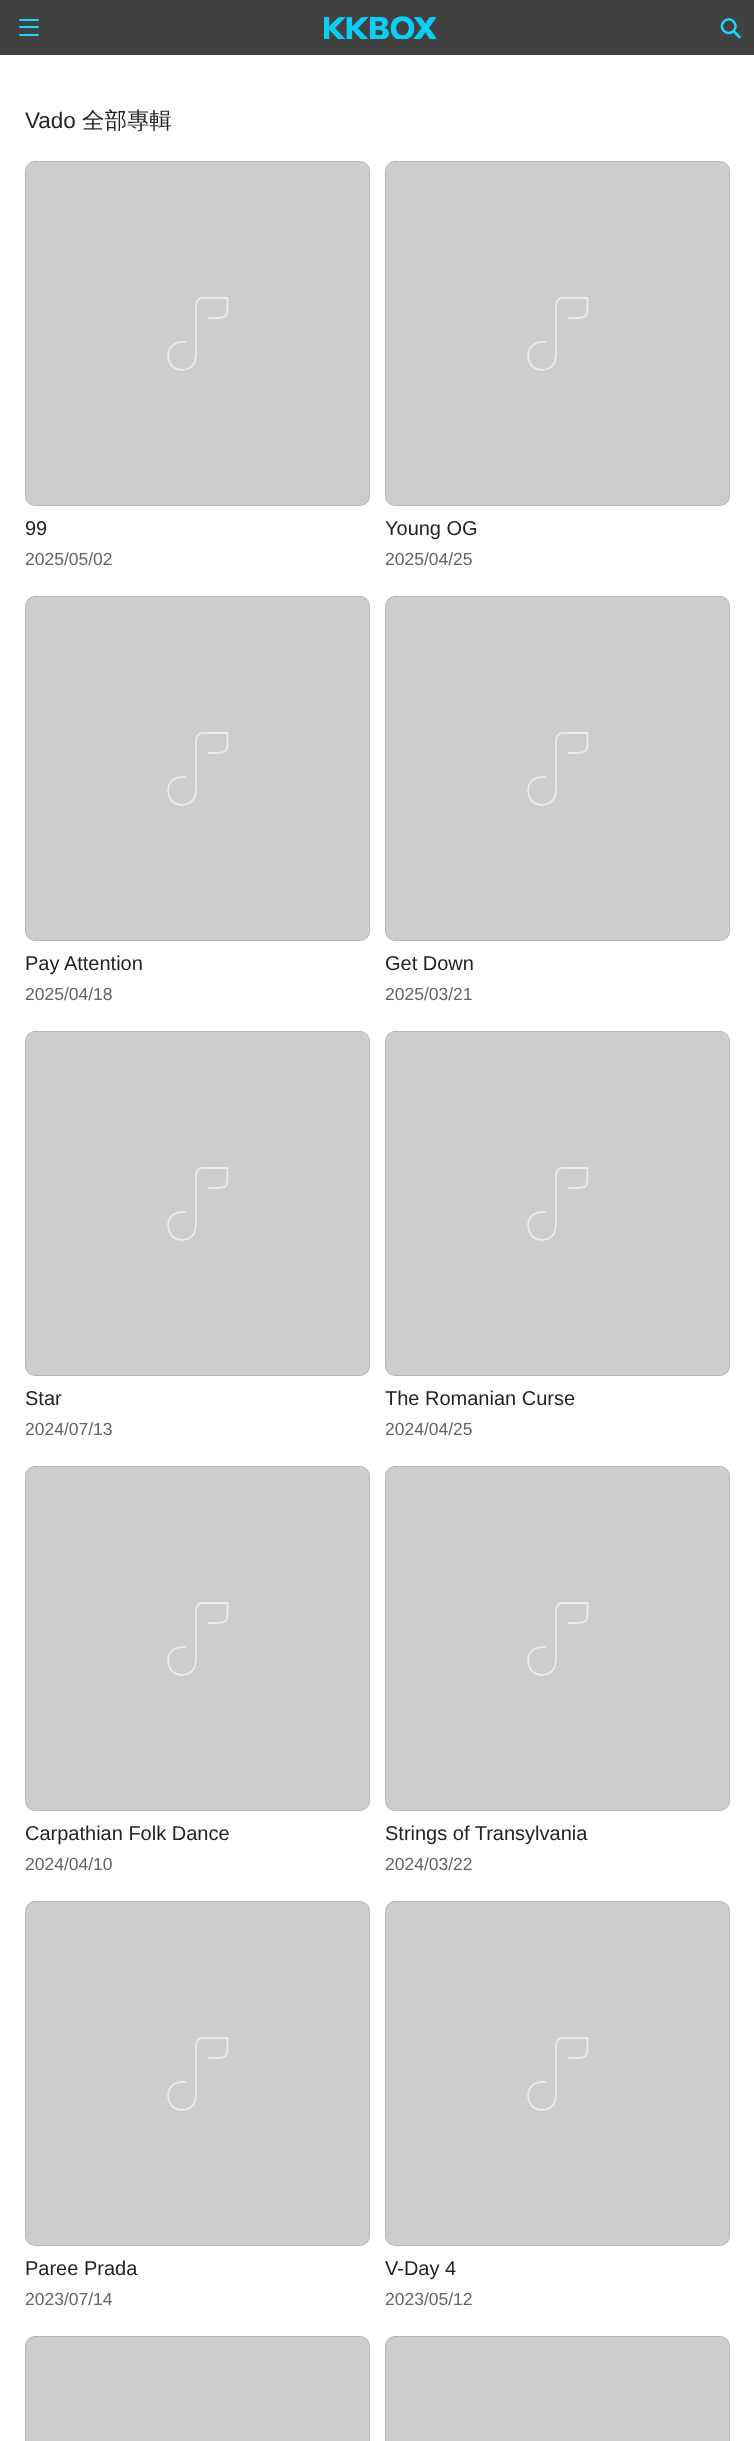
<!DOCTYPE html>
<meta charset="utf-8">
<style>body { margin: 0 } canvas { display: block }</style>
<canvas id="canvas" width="754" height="2441"></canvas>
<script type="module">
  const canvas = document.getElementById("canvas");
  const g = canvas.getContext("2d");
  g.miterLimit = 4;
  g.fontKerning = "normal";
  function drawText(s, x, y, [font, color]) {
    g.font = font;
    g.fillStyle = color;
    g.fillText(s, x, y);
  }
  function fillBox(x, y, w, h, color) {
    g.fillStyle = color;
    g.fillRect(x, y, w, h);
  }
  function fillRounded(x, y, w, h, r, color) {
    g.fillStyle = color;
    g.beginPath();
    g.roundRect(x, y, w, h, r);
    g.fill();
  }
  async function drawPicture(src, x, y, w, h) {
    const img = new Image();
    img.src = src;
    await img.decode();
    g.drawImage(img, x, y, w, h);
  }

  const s1 = ["22.5px Liberation Sans", "#232323"];
  const s2 = ["500 22.5px WenQuanYi Zen Hei", "#232323"];
  const s3 = ["20px Liberation Sans", "#232323"];
  const s4 = ["17.5px Liberation Sans", "#646464"];

  fillBox(0, 0, 754, 2441, "#FFFFFF");
  fillBox(0, 0, 754, 55, "#414141");
  fillRounded(19, 19, 20, 2, 1, "#1DD6FF");
  fillRounded(19, 26, 20, 2, 1, "#1DD6FF");
  fillRounded(19, 34, 20, 2, 1, "#1DD6FF");
  await drawPicture("pic1.png", 324, 16, 112, 23);
  g.beginPath();
  g.moveTo(724, 21.5);
  g.bezierCurveTo(730, 15, 740, 24.5, 733.5, 31);
  g.bezierCurveTo(727, 37.5, 717.5, 27.5, 724, 21.5);
  g.closePath();
  g.moveTo(734, 31.5);
  g.lineTo(739.5, 37);
  g.strokeStyle = "#1DD6FF";
  g.lineWidth = 2.5;
  g.lineCap = "round";
  g.lineJoin = "round";
  g.stroke();
  drawText("Vado", 25, 128, s1);
  drawText("全部專輯", 82, 128, s2);
  fillRounded(25, 161, 345, 345, 10, "#CDCDCD");
  g.beginPath();
  g.moveTo(185, 342);
  g.bezierCurveTo(181, 341.5, 177, 342, 173.5, 344.5);
  g.bezierCurveTo(164.5, 351, 167.5, 367.5, 178.5, 369.5);
  g.bezierCurveTo(182, 370, 185.5, 370, 188.5, 368.5);
  g.bezierCurveTo(195.5, 365.5, 196, 358, 196, 351);
  g.lineTo(196, 354);
  g.lineTo(196, 305.5);
  g.bezierCurveTo(196, 300.5, 199.5, 298, 202, 298);
  g.lineTo(227.5, 298);
  g.bezierCurveTo(227.5, 319, 229, 318, 208.5, 318);
  g.strokeStyle = "#EBEBEB";
  g.lineWidth = 1.8;
  g.stroke();
  g.beginPath();
  g.roundRect(25.5, 161.5, 344, 344, 9.5);
  g.strokeStyle = "rgba(0, 0, 0, 0.1)";
  g.lineWidth = 1;
  g.lineJoin = "miter";
  g.stroke();
  drawText("99", 25, 535, s3);
  drawText("2025/05/02", 25, 565, s4);
  fillRounded(385, 161, 345, 345, 10, "#CDCDCD");
  g.beginPath();
  g.moveTo(545, 342);
  g.bezierCurveTo(541, 341.5, 537, 342, 533.5, 344.5);
  g.bezierCurveTo(524.5, 351, 527.5, 367.5, 538.5, 369.5);
  g.bezierCurveTo(542, 370, 545.5, 370, 548.5, 368.5);
  g.bezierCurveTo(555.5, 365.5, 556, 358, 556, 351);
  g.lineTo(556, 354);
  g.lineTo(556, 305.5);
  g.bezierCurveTo(556, 300.5, 559.5, 298, 562, 298);
  g.lineTo(587.5, 298);
  g.bezierCurveTo(587.5, 319, 589, 318, 568.5, 318);
  g.strokeStyle = "#EBEBEB";
  g.lineWidth = 1.8;
  g.lineJoin = "round";
  g.stroke();
  g.beginPath();
  g.roundRect(385.5, 161.5, 344, 344, 9.5);
  g.strokeStyle = "rgba(0, 0, 0, 0.1)";
  g.lineWidth = 1;
  g.lineJoin = "miter";
  g.stroke();
  drawText("Young OG", 385, 535, s3);
  drawText("2025/04/25", 385, 565, s4);
  fillRounded(25, 596, 345, 345, 10, "#CDCDCD");
  g.beginPath();
  g.moveTo(185, 777);
  g.bezierCurveTo(181, 776.5, 177, 777, 173.5, 779.5);
  g.bezierCurveTo(164.5, 786, 167.5, 802.5, 178.5, 804.5);
  g.bezierCurveTo(182, 805, 185.5, 805, 188.5, 803.5);
  g.bezierCurveTo(195.5, 800.5, 196, 793, 196, 786);
  g.lineTo(196, 789);
  g.lineTo(196, 740.5);
  g.bezierCurveTo(196, 735.5, 199.5, 733, 202, 733);
  g.lineTo(227.5, 733);
  g.bezierCurveTo(227.5, 754, 229, 753, 208.5, 753);
  g.strokeStyle = "#EBEBEB";
  g.lineWidth = 1.8;
  g.lineJoin = "round";
  g.stroke();
  g.beginPath();
  g.roundRect(25.5, 596.5, 344, 344, 9.5);
  g.strokeStyle = "rgba(0, 0, 0, 0.1)";
  g.lineWidth = 1;
  g.lineJoin = "miter";
  g.stroke();
  drawText("Pay Attention", 25, 970, s3);
  drawText("2025/04/18", 25, 1000, s4);
  fillRounded(385, 596, 345, 345, 10, "#CDCDCD");
  g.beginPath();
  g.moveTo(545, 777);
  g.bezierCurveTo(541, 776.5, 537, 777, 533.5, 779.5);
  g.bezierCurveTo(524.5, 786, 527.5, 802.5, 538.5, 804.5);
  g.bezierCurveTo(542, 805, 545.5, 805, 548.5, 803.5);
  g.bezierCurveTo(555.5, 800.5, 556, 793, 556, 786);
  g.lineTo(556, 789);
  g.lineTo(556, 740.5);
  g.bezierCurveTo(556, 735.5, 559.5, 733, 562, 733);
  g.lineTo(587.5, 733);
  g.bezierCurveTo(587.5, 754, 589, 753, 568.5, 753);
  g.strokeStyle = "#EBEBEB";
  g.lineWidth = 1.8;
  g.lineJoin = "round";
  g.stroke();
  g.beginPath();
  g.roundRect(385.5, 596.5, 344, 344, 9.5);
  g.strokeStyle = "rgba(0, 0, 0, 0.1)";
  g.lineWidth = 1;
  g.lineJoin = "miter";
  g.stroke();
  drawText("Get Down", 385, 970, s3);
  drawText("2025/03/21", 385, 1000, s4);
  fillRounded(25, 1031, 345, 345, 10, "#CDCDCD");
  g.beginPath();
  g.moveTo(185, 1212);
  g.bezierCurveTo(181, 1211.5, 177, 1212, 173.5, 1214.5);
  g.bezierCurveTo(164.5, 1221, 167.5, 1237.5, 178.5, 1239.5);
  g.bezierCurveTo(182, 1240, 185.5, 1240, 188.5, 1238.5);
  g.bezierCurveTo(195.5, 1235.5, 196, 1228, 196, 1221);
  g.lineTo(196, 1224);
  g.lineTo(196, 1175.5);
  g.bezierCurveTo(196, 1170.5, 199.5, 1168, 202, 1168);
  g.lineTo(227.5, 1168);
  g.bezierCurveTo(227.5, 1189, 229, 1188, 208.5, 1188);
  g.strokeStyle = "#EBEBEB";
  g.lineWidth = 1.8;
  g.lineJoin = "round";
  g.stroke();
  g.beginPath();
  g.roundRect(25.5, 1031.5, 344, 344, 9.5);
  g.strokeStyle = "rgba(0, 0, 0, 0.1)";
  g.lineWidth = 1;
  g.lineJoin = "miter";
  g.stroke();
  drawText("Star", 25, 1405, s3);
  drawText("2024/07/13", 25, 1435, s4);
  fillRounded(385, 1031, 345, 345, 10, "#CDCDCD");
  g.beginPath();
  g.moveTo(545, 1212);
  g.bezierCurveTo(541, 1211.5, 537, 1212, 533.5, 1214.5);
  g.bezierCurveTo(524.5, 1221, 527.5, 1237.5, 538.5, 1239.5);
  g.bezierCurveTo(542, 1240, 545.5, 1240, 548.5, 1238.5);
  g.bezierCurveTo(555.5, 1235.5, 556, 1228, 556, 1221);
  g.lineTo(556, 1224);
  g.lineTo(556, 1175.5);
  g.bezierCurveTo(556, 1170.5, 559.5, 1168, 562, 1168);
  g.lineTo(587.5, 1168);
  g.bezierCurveTo(587.5, 1189, 589, 1188, 568.5, 1188);
  g.strokeStyle = "#EBEBEB";
  g.lineWidth = 1.8;
  g.lineJoin = "round";
  g.stroke();
  g.beginPath();
  g.roundRect(385.5, 1031.5, 344, 344, 9.5);
  g.strokeStyle = "rgba(0, 0, 0, 0.1)";
  g.lineWidth = 1;
  g.lineJoin = "miter";
  g.stroke();
  drawText("The Romanian Curse", 385, 1405, s3);
  drawText("2024/04/25", 385, 1435, s4);
  fillRounded(25, 1466, 345, 345, 10, "#CDCDCD");
  g.beginPath();
  g.moveTo(185, 1647);
  g.bezierCurveTo(181, 1646.5, 177, 1647, 173.5, 1649.5);
  g.bezierCurveTo(164.5, 1656, 167.5, 1672.5, 178.5, 1674.5);
  g.bezierCurveTo(182, 1675, 185.5, 1675, 188.5, 1673.5);
  g.bezierCurveTo(195.5, 1670.5, 196, 1663, 196, 1656);
  g.lineTo(196, 1659);
  g.lineTo(196, 1610.5);
  g.bezierCurveTo(196, 1605.5, 199.5, 1603, 202, 1603);
  g.lineTo(227.5, 1603);
  g.bezierCurveTo(227.5, 1624, 229, 1623, 208.5, 1623);
  g.strokeStyle = "#EBEBEB";
  g.lineWidth = 1.8;
  g.lineJoin = "round";
  g.stroke();
  g.beginPath();
  g.roundRect(25.5, 1466.5, 344, 344, 9.5);
  g.strokeStyle = "rgba(0, 0, 0, 0.1)";
  g.lineWidth = 1;
  g.lineJoin = "miter";
  g.stroke();
  drawText("Carpathian Folk Dance", 25, 1840, s3);
  drawText("2024/04/10", 25, 1870, s4);
  fillRounded(385, 1466, 345, 345, 10, "#CDCDCD");
  g.beginPath();
  g.moveTo(545, 1647);
  g.bezierCurveTo(541, 1646.5, 537, 1647, 533.5, 1649.5);
  g.bezierCurveTo(524.5, 1656, 527.5, 1672.5, 538.5, 1674.5);
  g.bezierCurveTo(542, 1675, 545.5, 1675, 548.5, 1673.5);
  g.bezierCurveTo(555.5, 1670.5, 556, 1663, 556, 1656);
  g.lineTo(556, 1659);
  g.lineTo(556, 1610.5);
  g.bezierCurveTo(556, 1605.5, 559.5, 1603, 562, 1603);
  g.lineTo(587.5, 1603);
  g.bezierCurveTo(587.5, 1624, 589, 1623, 568.5, 1623);
  g.strokeStyle = "#EBEBEB";
  g.lineWidth = 1.8;
  g.lineJoin = "round";
  g.stroke();
  g.beginPath();
  g.roundRect(385.5, 1466.5, 344, 344, 9.5);
  g.strokeStyle = "rgba(0, 0, 0, 0.1)";
  g.lineWidth = 1;
  g.lineJoin = "miter";
  g.stroke();
  drawText("Strings of Transylvania", 385, 1840, s3);
  drawText("2024/03/22", 385, 1870, s4);
  fillRounded(25, 1901, 345, 345, 10, "#CDCDCD");
  g.beginPath();
  g.moveTo(185, 2082);
  g.bezierCurveTo(181, 2081.5, 177, 2082, 173.5, 2084.5);
  g.bezierCurveTo(164.5, 2091, 167.5, 2107.5, 178.5, 2109.5);
  g.bezierCurveTo(182, 2110, 185.5, 2110, 188.5, 2108.5);
  g.bezierCurveTo(195.5, 2105.5, 196, 2098, 196, 2091);
  g.lineTo(196, 2094);
  g.lineTo(196, 2045.5);
  g.bezierCurveTo(196, 2040.5, 199.5, 2038, 202, 2038);
  g.lineTo(227.5, 2038);
  g.bezierCurveTo(227.5, 2059, 229, 2058, 208.5, 2058);
  g.strokeStyle = "#EBEBEB";
  g.lineWidth = 1.8;
  g.lineJoin = "round";
  g.stroke();
  g.beginPath();
  g.roundRect(25.5, 1901.5, 344, 344, 9.5);
  g.strokeStyle = "rgba(0, 0, 0, 0.1)";
  g.lineWidth = 1;
  g.lineJoin = "miter";
  g.stroke();
  drawText("Paree Prada", 25, 2275, s3);
  drawText("2023/07/14", 25, 2305, s4);
  fillRounded(385, 1901, 345, 345, 10, "#CDCDCD");
  g.beginPath();
  g.moveTo(545, 2082);
  g.bezierCurveTo(541, 2081.5, 537, 2082, 533.5, 2084.5);
  g.bezierCurveTo(524.5, 2091, 527.5, 2107.5, 538.5, 2109.5);
  g.bezierCurveTo(542, 2110, 545.5, 2110, 548.5, 2108.5);
  g.bezierCurveTo(555.5, 2105.5, 556, 2098, 556, 2091);
  g.lineTo(556, 2094);
  g.lineTo(556, 2045.5);
  g.bezierCurveTo(556, 2040.5, 559.5, 2038, 562, 2038);
  g.lineTo(587.5, 2038);
  g.bezierCurveTo(587.5, 2059, 589, 2058, 568.5, 2058);
  g.strokeStyle = "#EBEBEB";
  g.lineWidth = 1.8;
  g.lineJoin = "round";
  g.stroke();
  g.beginPath();
  g.roundRect(385.5, 1901.5, 344, 344, 9.5);
  g.strokeStyle = "rgba(0, 0, 0, 0.1)";
  g.lineWidth = 1;
  g.lineJoin = "miter";
  g.stroke();
  drawText("V-Day 4", 385, 2275, s3);
  drawText("2023/05/12", 385, 2305, s4);
  fillRounded(25, 2336, 345, 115, 10, "#CDCDCD");
  g.beginPath();
  g.roundRect(25.5, 2336.5, 344, 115, 9.5);
  g.stroke();
  fillRounded(385, 2336, 345, 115, 10, "#CDCDCD");
  g.beginPath();
  g.roundRect(385.5, 2336.5, 344, 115, 9.5);
  g.stroke();
</script>
